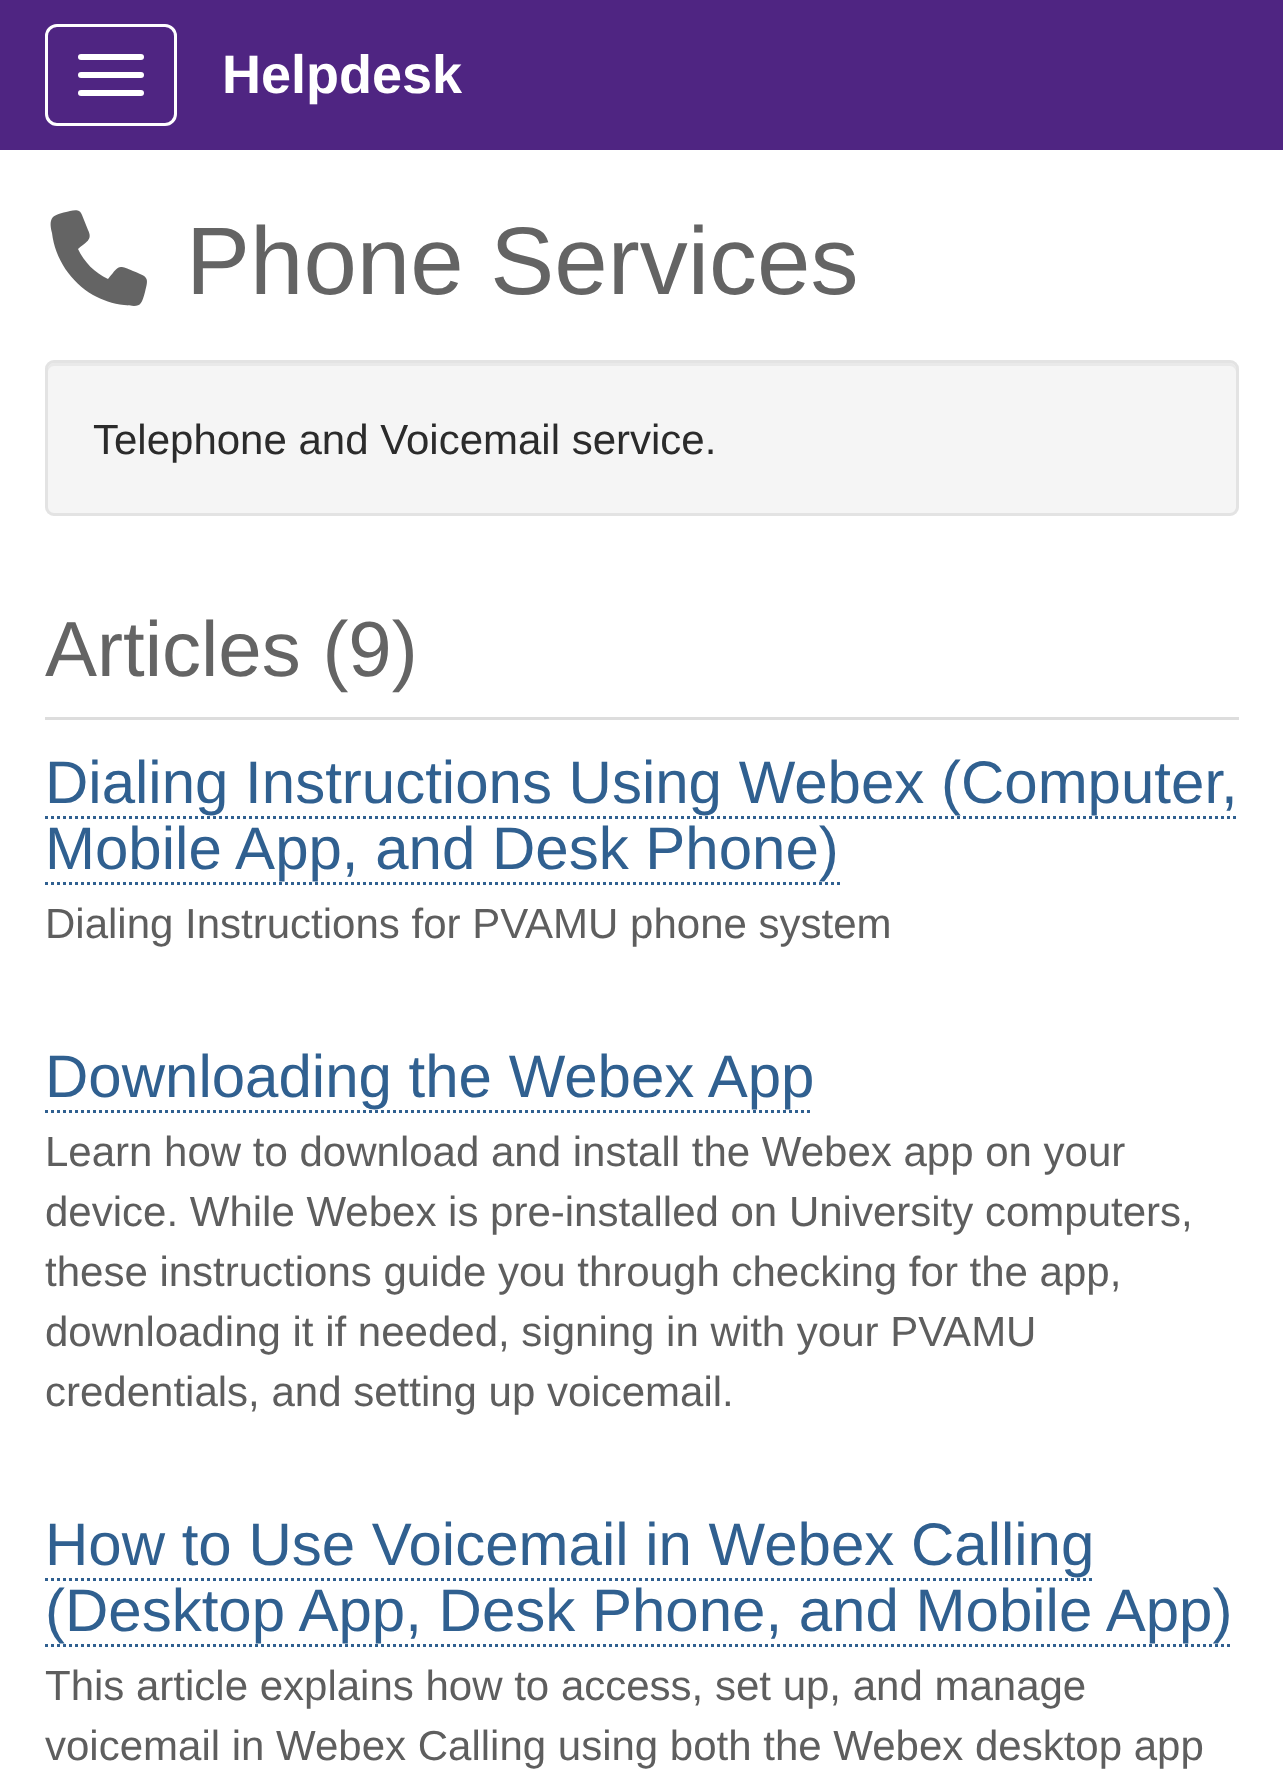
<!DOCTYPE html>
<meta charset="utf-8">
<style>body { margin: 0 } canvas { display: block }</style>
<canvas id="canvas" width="1283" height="1792"></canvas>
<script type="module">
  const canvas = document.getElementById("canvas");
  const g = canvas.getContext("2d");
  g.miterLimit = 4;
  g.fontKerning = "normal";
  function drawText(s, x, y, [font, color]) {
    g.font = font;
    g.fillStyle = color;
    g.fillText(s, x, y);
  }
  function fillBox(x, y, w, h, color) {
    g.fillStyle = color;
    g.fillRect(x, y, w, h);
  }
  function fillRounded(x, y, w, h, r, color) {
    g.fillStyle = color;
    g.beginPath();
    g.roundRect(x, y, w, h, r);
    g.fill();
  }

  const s1 = ["bold 54px Liberation Sans", "#FFFFFF"];
  const s2 = ["96px Liberation Sans", "#646464"];
  const s3 = ["42px Liberation Sans", "#2B2B2B"];
  const s4 = ["78px Liberation Sans", "#646464"];
  const s5 = ["60px Liberation Sans", "#306090"];
  const s6 = ["42px Liberation Sans", "#5E5E5E"];

  fillBox(0, 0, 1283, 1792, "#FFFFFF");
  fillBox(0, 0, 1283, 150, "#4F2582");
  g.beginPath();
  g.roundRect(46.5, 25.5, 129, 99, 10.5);
  g.strokeStyle = "#FFFFFF";
  g.lineWidth = 3;
  g.stroke();
  fillRounded(78, 54, 66, 6, 3, "#FFFFFF");
  fillRounded(78, 72, 66, 6, 3, "#FFFFFF");
  fillRounded(78, 90, 66, 6, 3, "#FFFFFF");
  drawText("Helpdesk", 222, 93, s1);
  g.fillStyle = "#646464";
  g.beginPath();
  g.moveTo(82, 215);
  g.bezierCurveTo(80, 209, 75, 210, 70, 211);
  g.bezierCurveTo(66, 212, 56, 214, 53, 217);
  g.bezierCurveTo(49, 221, 51, 229, 52, 233);
  g.bezierCurveTo(55, 259, 71, 282, 93, 295);
  g.bezierCurveTo(102, 300, 113, 304, 124, 305);
  g.bezierCurveTo(140, 307, 141, 307, 145, 292);
  g.bezierCurveTo(149, 277, 148, 277, 133, 271);
  g.bezierCurveTo(117, 264, 119, 266, 108, 279);
  g.bezierCurveTo(95, 273, 84, 262, 78, 249);
  g.bezierCurveTo(86, 242, 93, 240, 88, 230);
  g.closePath();
  g.fill();
  drawText("Phone Services", 186, 294, s2);
  fillRounded(45, 360, 1194, 156, 9, "#F5F5F5");
  g.fillStyle = "#E9E9E9";
  g.beginPath();
  g.moveTo(54, 366);
  g.lineTo(1230, 366);
  g.bezierCurveTo(1233, 366, 1236, 369, 1236, 372);
  g.lineTo(1236, 369);
  g.bezierCurveTo(1236, 366, 1233, 363, 1230, 363);
  g.lineTo(54, 363);
  g.bezierCurveTo(51, 363, 48, 366, 48, 369);
  g.lineTo(48, 372);
  g.bezierCurveTo(48, 369, 51, 366, 54, 366);
  g.closePath();
  g.fill();
  g.beginPath();
  g.roundRect(46.5, 361.5, 1191, 153, 7.5);
  g.strokeStyle = "#E3E3E3";
  g.stroke();
  drawText("Telephone and Voicemail service.", 93, 454, s3);
  fillBox(45, 717, 1194, 3, "#DDDDDD");
  drawText("Articles (9)", 45, 676, s4);
  drawText("Dialing Instructions Using Webex (Computer,", 45, 803, s5);
  g.beginPath();
  g.moveTo(45, 817.5);
  g.lineTo(1239, 817.5);
  g.strokeStyle = "#306090";
  g.setLineDash([3, 3]);
  g.stroke();
  drawText("Mobile App, and Desk Phone)", 45, 869, s5);
  g.beginPath();
  g.moveTo(45, 883.5);
  g.lineTo(840, 883.5);
  g.stroke();
  drawText("Dialing Instructions for PVAMU phone system", 45, 938, s6);
  drawText("Downloading the Webex App", 45, 1097, s5);
  g.beginPath();
  g.moveTo(45, 1111.5);
  g.lineTo(813, 1111.5);
  g.stroke();
  drawText("Learn how to download and install the Webex app on your", 45, 1166, s6);
  drawText("device. While Webex is pre-installed on University computers,", 45, 1226, s6);
  drawText("these instructions guide you through checking for the app,", 45, 1286, s6);
  drawText("downloading it if needed, signing in with your PVAMU", 45, 1346, s6);
  drawText("credentials, and setting up voicemail.", 45, 1406, s6);
  drawText("How to Use Voicemail in Webex Calling", 45, 1565, s5);
  g.beginPath();
  g.moveTo(45, 1579.5);
  g.lineTo(1095, 1579.5);
  g.stroke();
  drawText("(Desktop App, Desk Phone, and Mobile App)", 45, 1631, s5);
  g.beginPath();
  g.moveTo(45, 1645.5);
  g.lineTo(1233, 1645.5);
  g.stroke();
  drawText("This article explains how to access, set up, and manage", 45, 1700, s6);
  drawText("voicemail in Webex Calling using both the Webex desktop app", 45, 1760, s6);
</script>
